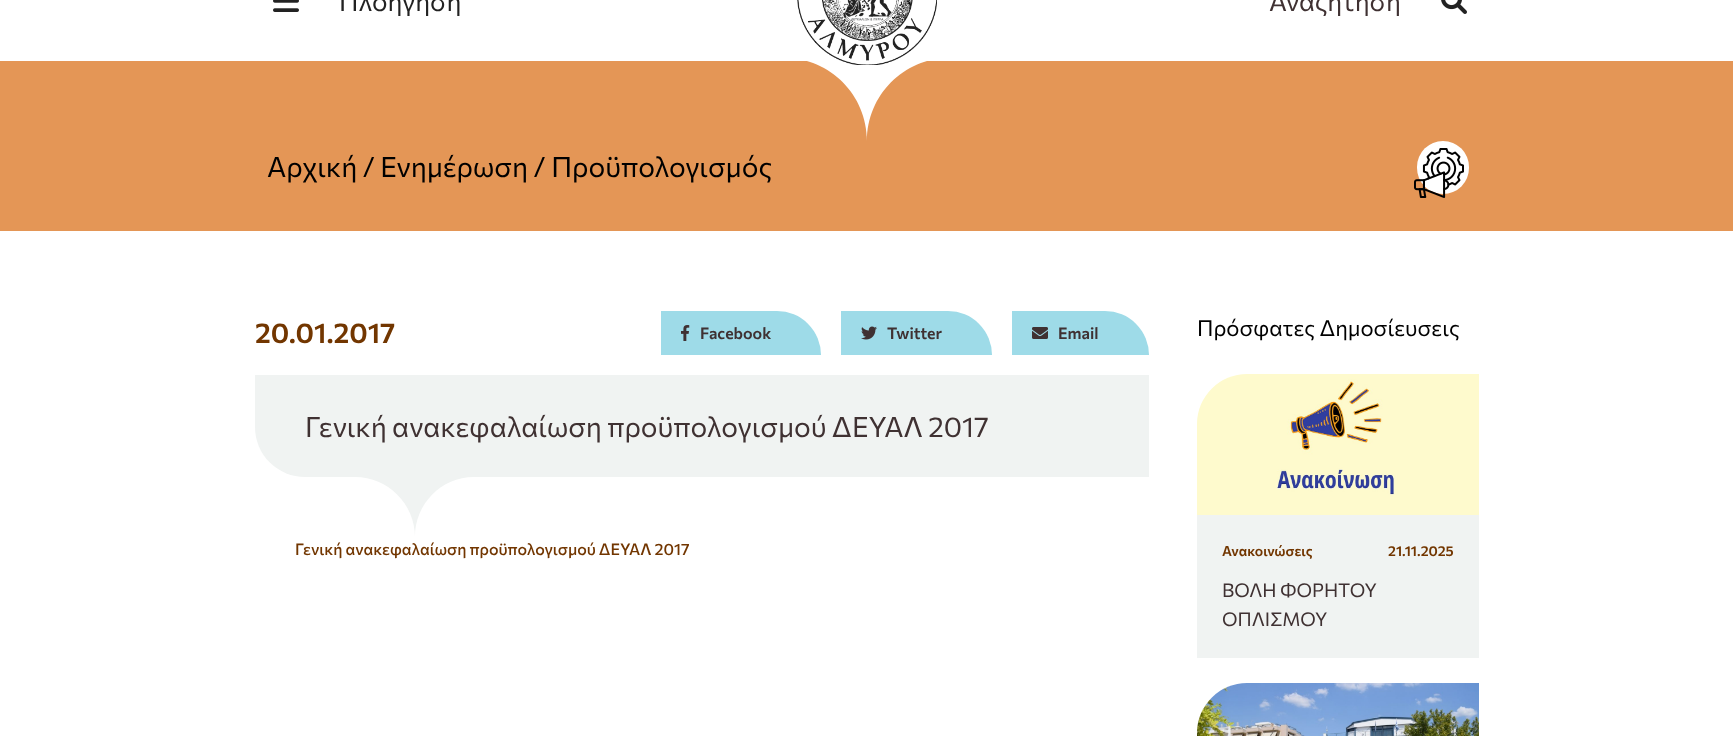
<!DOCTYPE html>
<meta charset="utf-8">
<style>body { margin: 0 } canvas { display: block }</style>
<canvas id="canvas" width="1733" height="736"></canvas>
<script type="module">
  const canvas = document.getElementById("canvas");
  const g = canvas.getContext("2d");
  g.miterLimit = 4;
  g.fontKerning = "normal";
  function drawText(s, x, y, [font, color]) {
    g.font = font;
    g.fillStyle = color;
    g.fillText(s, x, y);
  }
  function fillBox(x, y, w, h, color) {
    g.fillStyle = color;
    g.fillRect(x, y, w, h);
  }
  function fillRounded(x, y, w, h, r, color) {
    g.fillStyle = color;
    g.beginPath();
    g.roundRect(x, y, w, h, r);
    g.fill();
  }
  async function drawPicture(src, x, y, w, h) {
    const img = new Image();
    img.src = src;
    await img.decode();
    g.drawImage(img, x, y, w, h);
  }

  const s1 = ["26px Commissioner", "#222222"];
  const s2 = ["26px Commissioner", "#3F3132"];
  const s3 = ["28px Commissioner", "#000000"];
  const s4 = ["600 28px Commissioner", "#723600"];
  const s5 = ["600 16px Commissioner", "#3F3132"];
  const s6 = ["28px Commissioner", "#3F3132"];
  const s7 = ["500 16px Commissioner", "#723600"];
  const s8 = ["22px Commissioner", "#000000"];
  const s9 = ["600 14px Commissioner", "#723600"];
  const s10 = ["19px Commissioner", "#3F3132"];

  fillBox(0, 0, 1733, 736, "#FFFFFF");
  await drawPicture("pic1.png", 273, 0, 26, 12);
  drawText("Πλοήγηση", 339, 11, s1);
  fillBox(0, 61, 1733, 170, "#E49656");
  g.fillStyle = "#FFFFFF";
  g.beginPath();
  g.moveTo(785, 58);
  g.bezierCurveTo(830, 58, 867, 95, 867, 141);
  g.bezierCurveTo(867, 95, 904, 58, 949, 58);
  g.closePath();
  g.fill("evenodd");
  await drawPicture("pic2.png", 797, 0, 140, 65);
  drawText("Αναζήτηση", 1269, 11, s2);
  await drawPicture("pic3.png", 1441, 0, 26, 14);
  drawText("Αρχική / Ενημέρωση / Προϋπολογισμός", 267, 177, s3);
  fillRounded(1417, 141, 52, 53, 26, "#FFFFFF");
  await drawPicture("pic4.png", 1414, 148, 50, 50);
  drawText("20.01.2017", 255, 343, s4);
  g.fillStyle = "#9EDBE8";
  g.beginPath();
  g.roundRect(661, 311, 160, 44, [0, 44, 0, 0]);
  g.fill();
  await drawPicture("pic5.png", 681, 325, 9, 16);
  drawText("Facebook", 700, 339, s5);
  g.fillStyle = "#9EDBE8";
  g.beginPath();
  g.roundRect(841, 311, 151, 44, [0, 44, 0, 0]);
  g.fill();
  await drawPicture("pic6.png", 861, 326, 16, 14);
  drawText("Twitter", 887, 339, s5);
  g.fillStyle = "#9EDBE8";
  g.beginPath();
  g.roundRect(1012, 311, 137, 44, [0, 44, 0, 0]);
  g.fill();
  await drawPicture("pic7.png", 1032, 327, 16, 12);
  drawText("Email", 1058, 339, s5);
  g.fillStyle = "#F0F3F2";
  g.beginPath();
  g.roundRect(255, 375, 894, 102, [0, 0, 0, 50]);
  g.fill();
  drawText("Γενική ανακεφαλαίωση προϋπολογισμού ΔΕΥΑΛ 2017", 305, 437, s6);
  g.fillStyle = "#F0F3F2";
  g.beginPath();
  g.moveTo(355, 477);
  g.bezierCurveTo(388, 477, 415, 504, 415, 537);
  g.bezierCurveTo(415, 504, 441, 477, 474, 477);
  g.closePath();
  g.fill("evenodd");
  drawText("Γενική ανακεφαλαίωση προϋπολογισμού ΔΕΥΑΛ 2017", 295, 555, s7);
  drawText("Πρόσφατες Δημοσίευσεις", 1197, 336, s8);
  await drawPicture("pic8.png", 1197, 374, 282, 141);
  fillBox(1197, 515, 282, 143, "#F0F3F2");
  drawText("Ανακοινώσεις", 1222, 556, s9);
  drawText("21.11.2025", 1388, 556, s9);
  drawText("ΒΟΛΗ ΦΟΡΗΤΟΥ", 1222, 597, s10);
  drawText("ΟΠΛΙΣΜΟΥ", 1222, 626, s10);
  await drawPicture("pic9.png", 1197, 683, 282, 53);
</script>
